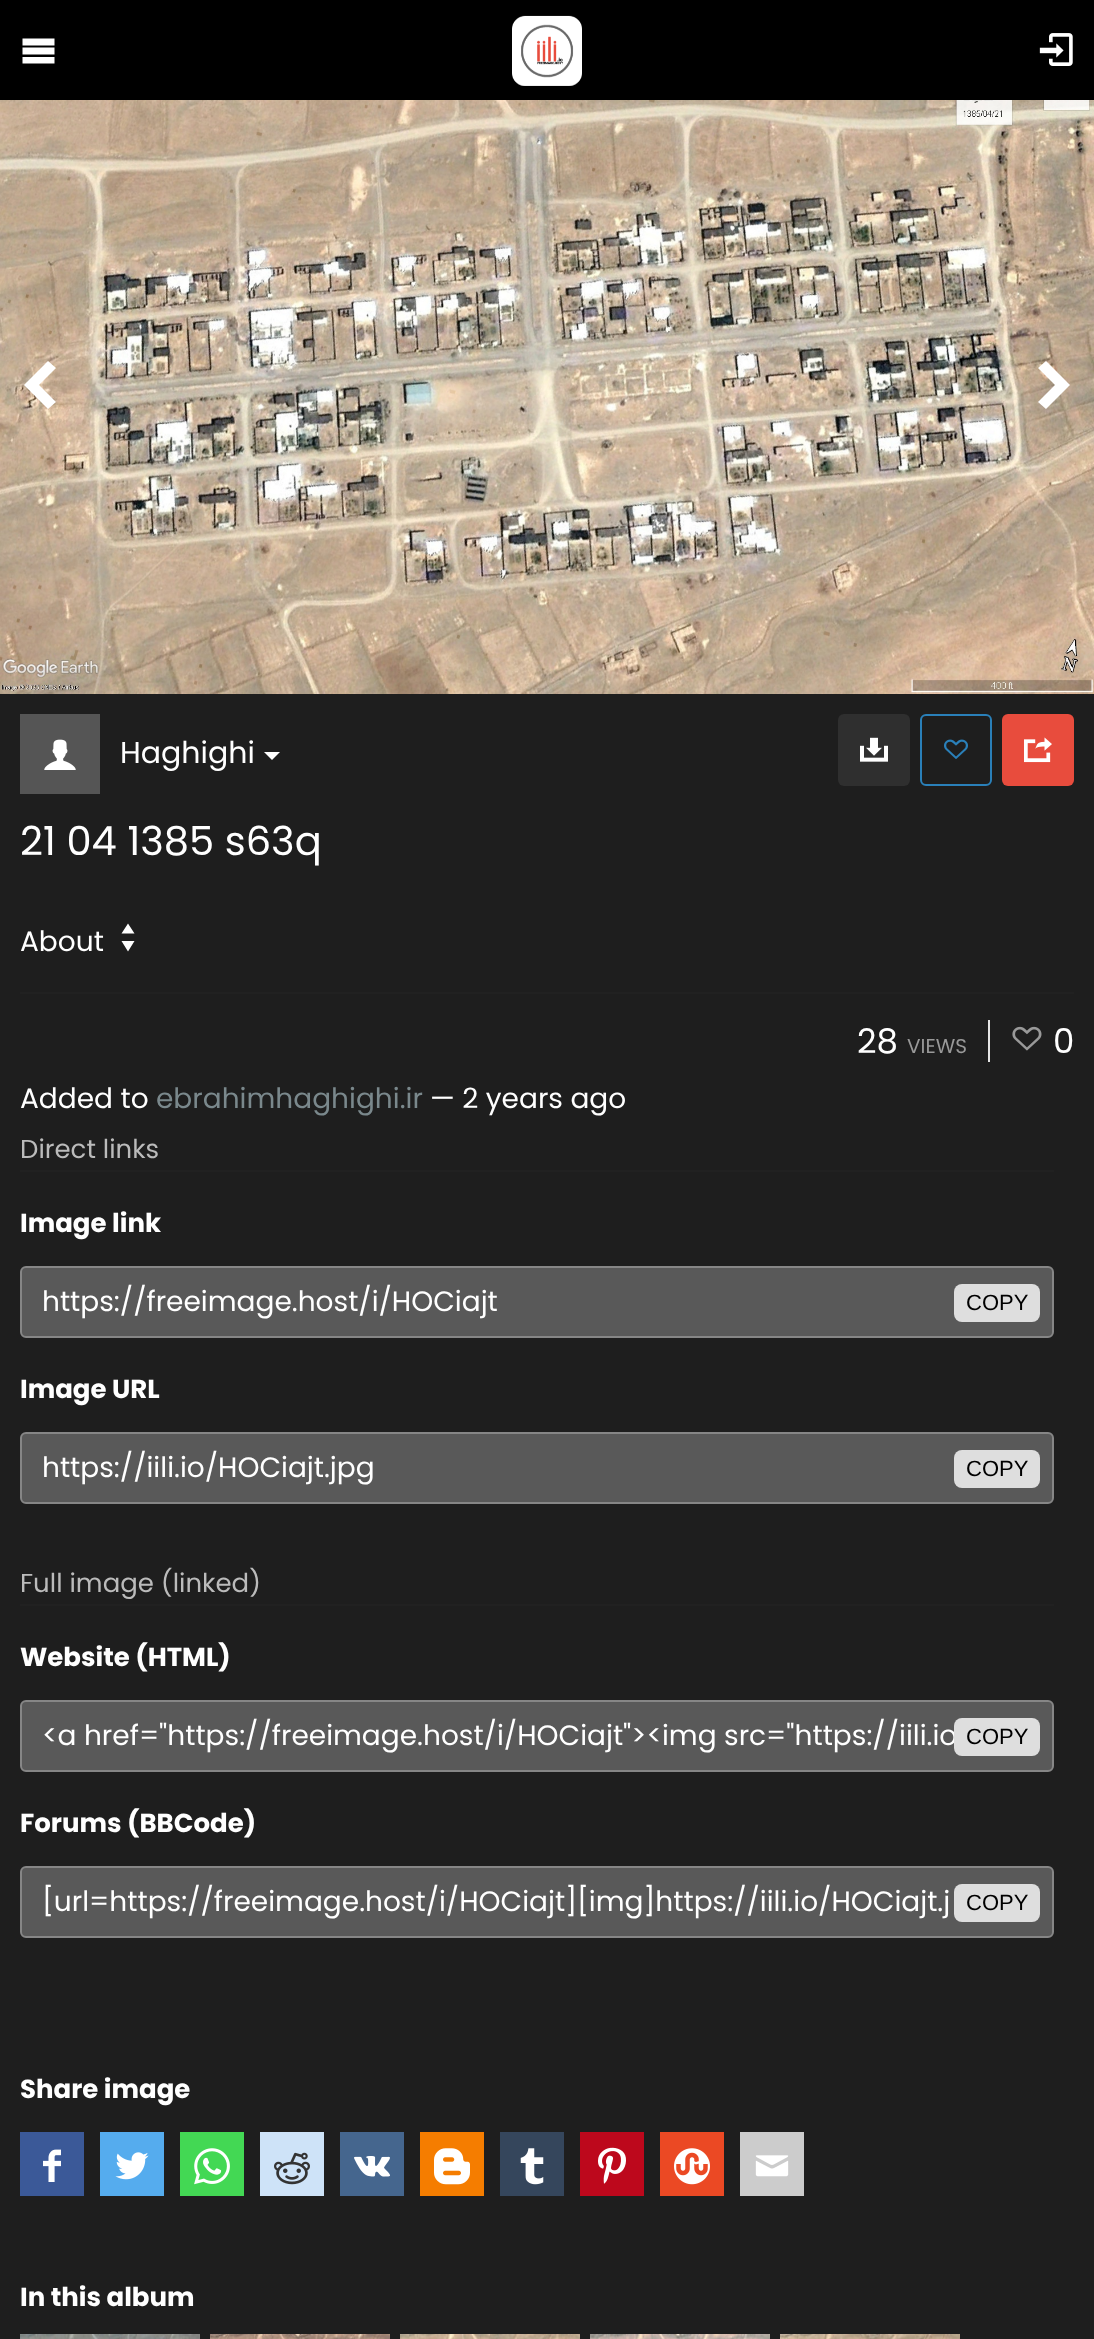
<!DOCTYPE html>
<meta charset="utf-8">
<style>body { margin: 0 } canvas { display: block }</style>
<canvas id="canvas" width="1094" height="2339"></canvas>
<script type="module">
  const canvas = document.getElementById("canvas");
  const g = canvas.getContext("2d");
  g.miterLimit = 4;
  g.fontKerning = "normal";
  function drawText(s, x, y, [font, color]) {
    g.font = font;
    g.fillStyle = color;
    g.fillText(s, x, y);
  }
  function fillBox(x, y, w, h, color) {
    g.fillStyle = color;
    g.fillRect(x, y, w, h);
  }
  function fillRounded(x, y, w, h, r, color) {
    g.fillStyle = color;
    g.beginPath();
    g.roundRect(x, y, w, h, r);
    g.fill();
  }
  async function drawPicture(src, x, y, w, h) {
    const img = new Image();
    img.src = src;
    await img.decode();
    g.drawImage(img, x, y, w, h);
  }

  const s1 = ["30px Poppins", "#FFFFFF"];
  const s2 = ["40px Poppins", "#FFFFFF"];
  const s3 = ["28px Poppins", "#FFFFFF"];
  const s4 = ["34px Poppins", "#FFFFFF"];
  const s5 = ["20px Poppins", "#999999"];
  const s6 = ["28px Poppins", "#7A888C"];
  const s7 = ["26px Poppins", "#BBBBBB"];
  const s8 = ["bold 26px Poppins", "#FFFFFF"];
  const s9 = ["22px Liberation Sans", "#000000"];

  fillBox(0, 0, 1094, 2339, "#1E1E1E");
  fillBox(0, 0, 1094, 100, "#000000");
  g.fillStyle = "#FFFFFF";
  g.beginPath();
  g.moveTo(22.5, 38.5);
  g.lineTo(54.5, 38.5);
  g.lineTo(54.5, 45.5);
  g.lineTo(22.5, 45.5);
  g.closePath();
  g.moveTo(22.5, 47.5);
  g.lineTo(54.5, 47.5);
  g.lineTo(54.5, 54.5);
  g.lineTo(22.5, 54.5);
  g.closePath();
  g.moveTo(22.5, 57);
  g.lineTo(54.5, 57);
  g.lineTo(54.5, 63.5);
  g.lineTo(22.5, 63.5);
  g.closePath();
  g.fill();
  await drawPicture("pic1.png", 512, 15, 70, 71);
  await drawPicture("pic2.png", 1039, 33, 34, 33);
  await drawPicture("pic3.png", 0, 100, 1094, 594);
  g.beginPath();
  g.moveTo(48, 361);
  g.lineTo(24, 385);
  g.lineTo(48, 409);
  g.lineTo(56, 402);
  g.lineTo(39, 385);
  g.lineTo(56, 368);
  g.closePath();
  g.fill();
  g.beginPath();
  g.moveTo(1046, 361);
  g.lineTo(1070, 385);
  g.lineTo(1046, 409);
  g.lineTo(1038, 402);
  g.lineTo(1055, 385);
  g.lineTo(1038, 368);
  g.closePath();
  g.fill();
  fillBox(20, 714, 80, 80, "#555555");
  await drawPicture("pic4.png", 44, 739, 32, 31);
  drawText("Haghighi", 120, 763, s1);
  g.beginPath();
  g.moveTo(264, 752);
  g.lineTo(280, 752);
  g.lineTo(272, 760);
  g.closePath();
  g.fill();
  fillRounded(838, 714, 72, 72, 6, "#2F2F2F");
  await drawPicture("pic5.png", 860, 737, 28, 25);
  g.beginPath();
  g.roundRect(921, 715, 70, 70, 5);
  g.strokeStyle = "#2A80B9";
  g.lineWidth = 2;
  g.stroke();
  await drawPicture("pic6.png", 944, 739, 24, 20);
  fillRounded(1002, 714, 72, 72, 6, "#E84C3D");
  await drawPicture("pic7.png", 1024, 737, 28, 26);
  drawText("21 04 1385 s63q", 20, 855, s2);
  fillBox(20, 992, 1054, 2, "#212121");
  drawText("About", 20, 951, s3);
  g.beginPath();
  g.moveTo(128, 923.5);
  g.lineTo(121.5, 933.5);
  g.lineTo(134.5, 933.5);
  g.closePath();
  g.moveTo(128, 951.5);
  g.lineTo(134.5, 941);
  g.lineTo(121.5, 941);
  g.closePath();
  g.fill();
  drawText("28", 857, 1053, s4);
  drawText("VIEWS", 907, 1053, s5);
  fillBox(988, 1020, 2, 42, "#E5E5E5");
  await drawPicture("pic8.png", 1012, 1026, 30, 25);
  drawText("0", 1053, 1053, s4);
  drawText("Added to", 20, 1108, s3);
  drawText("ebrahimhaghighi.ir", 156, 1108, s6);
  drawText("— 2 years ago", 430, 1108, s3);
  fillBox(20, 1170, 1034, 2, "#212121");
  drawText("Direct links", 20, 1158, s7);
  drawText("Image link", 20, 1232, s8);
  g.fillStyle = "#595959";
  g.beginPath();
  g.roundRect(21, 1267, 1032, 70, 5);
  g.fill();
  g.strokeStyle = "#868686";
  g.stroke();
  drawText("https://freeimage.host/i/HOCiajt", 42, 1311, s3);
  fillRounded(954, 1284, 86, 38, 8, "#DEDEDE");
  drawText("COPY", 966, 1310, s9);
  drawText("Image URL", 20, 1398, s8);
  g.fillStyle = "#595959";
  g.beginPath();
  g.roundRect(21, 1433, 1032, 70, 5);
  g.fill();
  g.stroke();
  drawText("https://iili.io/HOCiajt.jpg", 42, 1477, s3);
  fillRounded(954, 1450, 86, 38, 8, "#DEDEDE");
  drawText("COPY", 966, 1476, s9);
  fillBox(20, 1604, 1034, 2, "#212121");
  drawText("Full image (linked)", 20, 1592, s7);
  drawText("Website (HTML)", 20, 1666, s8);
  g.fillStyle = "#595959";
  g.beginPath();
  g.roundRect(21, 1701, 1032, 70, 5);
  g.fill();
  g.stroke();
  drawText("<a href=\"https://freeimage.host/i/HOCiajt\"><img src=\"https://iili.io", 42, 1745, s3);
  fillRounded(954, 1718, 86, 38, 8, "#DEDEDE");
  drawText("COPY", 966, 1744, s9);
  drawText("Forums (BBCode)", 20, 1832, s8);
  g.fillStyle = "#595959";
  g.beginPath();
  g.roundRect(21, 1867, 1032, 70, 5);
  g.fill();
  g.stroke();
  drawText("[url=https://freeimage.host/i/HOCiajt][img]https://iili.io/HOCiajt.j", 42, 1911, s3);
  fillRounded(954, 1884, 86, 38, 8, "#DEDEDE");
  drawText("COPY", 966, 1910, s9);
  drawText("Share image", 20, 2098, s8);
  fillBox(20, 2132, 64, 64, "#3B5998");
  await drawPicture("pic9.png", 43, 2149, 18, 33);
  fillBox(100, 2132, 64, 64, "#55ACEE");
  await drawPicture("pic10.png", 115, 2152, 34, 28);
  fillBox(180, 2132, 64, 64, "#43D854");
  await drawPicture("pic11.png", 194, 2148, 36, 37);
  fillBox(260, 2132, 64, 64, "#CEE3F8");
  await drawPicture("pic12.png", 274, 2152, 36, 33);
  fillBox(340, 2132, 64, 64, "#45668E");
  await drawPicture("pic13.png", 354, 2156, 36, 21);
  fillBox(420, 2132, 64, 64, "#F57D00");
  await drawPicture("pic14.png", 434, 2148, 36, 37);
  fillBox(500, 2132, 64, 64, "#35465C");
  await drawPicture("pic15.png", 520, 2148, 24, 37);
  fillBox(580, 2132, 64, 64, "#BD081C");
  await drawPicture("pic16.png", 598, 2147, 28, 37);
  fillBox(660, 2132, 64, 64, "#EB4924");
  await drawPicture("pic17.png", 674, 2148, 36, 37);
  fillBox(740, 2132, 64, 64, "#CCCCCC");
  await drawPicture("pic18.png", 755, 2155, 34, 22);
  drawText("In this album", 20, 2306, s8);
  await drawPicture("pic19.png", 20, 2334, 180, 5);
  await drawPicture("pic20.png", 210, 2334, 180, 5);
  await drawPicture("pic21.png", 400, 2334, 180, 5);
  await drawPicture("pic22.png", 590, 2334, 180, 5);
  await drawPicture("pic23.png", 780, 2334, 180, 5);
</script>
